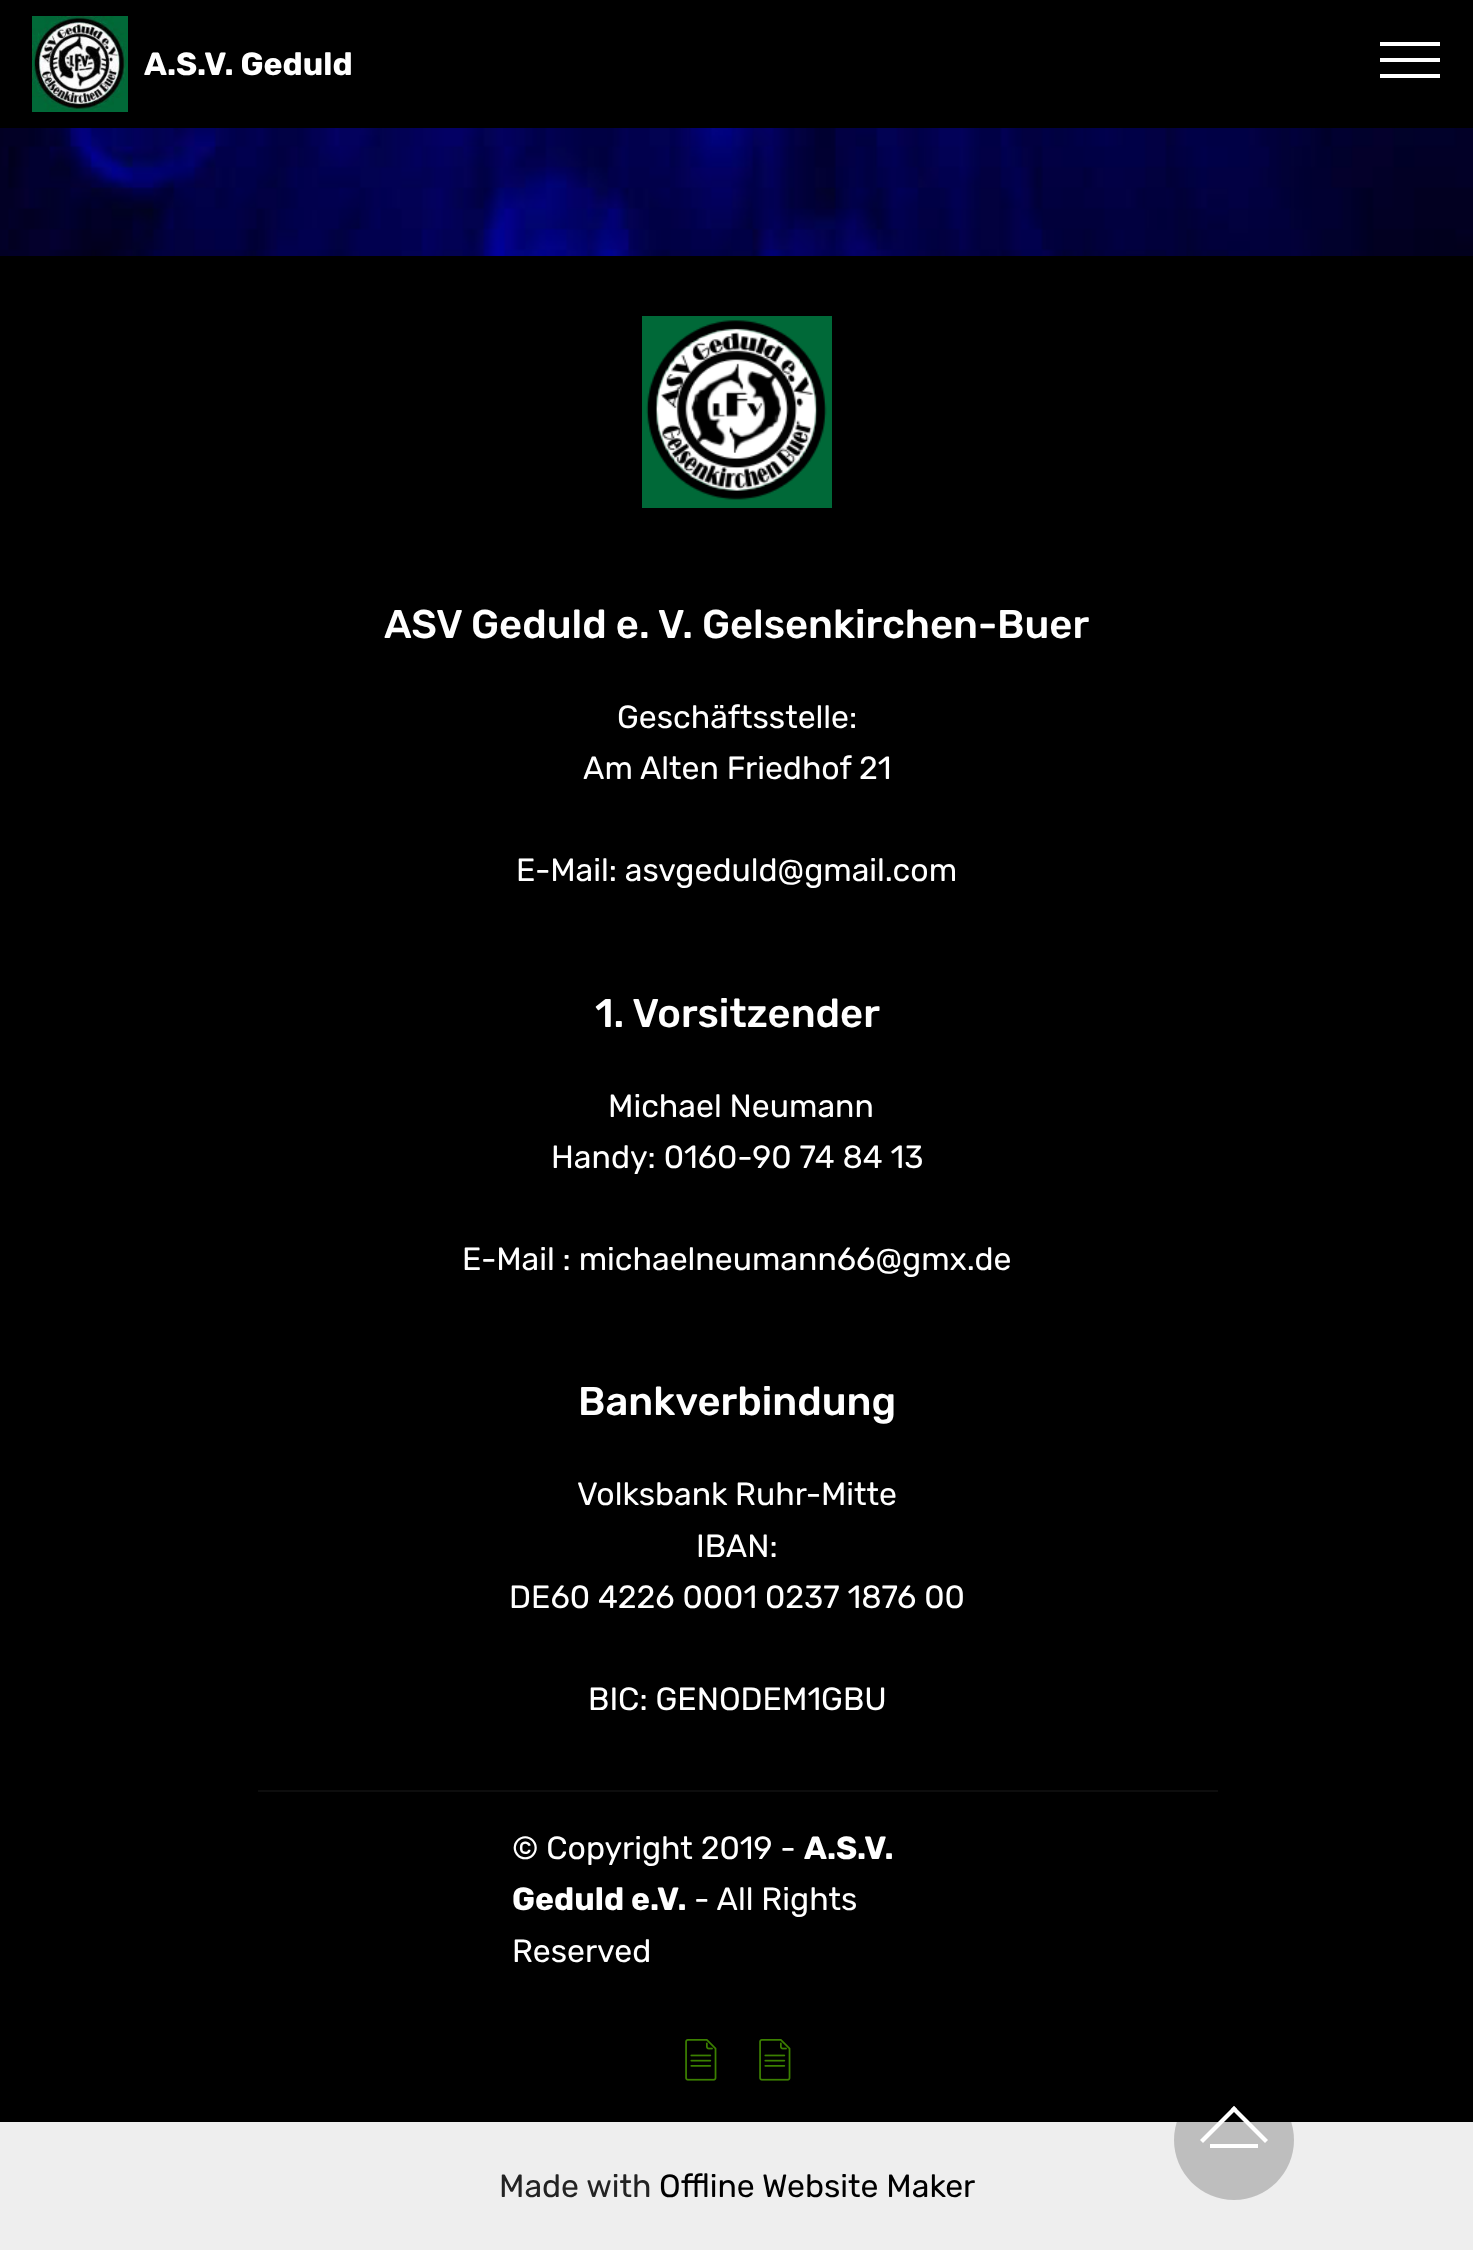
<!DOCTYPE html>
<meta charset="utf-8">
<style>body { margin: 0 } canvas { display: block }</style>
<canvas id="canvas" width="1473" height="2250"></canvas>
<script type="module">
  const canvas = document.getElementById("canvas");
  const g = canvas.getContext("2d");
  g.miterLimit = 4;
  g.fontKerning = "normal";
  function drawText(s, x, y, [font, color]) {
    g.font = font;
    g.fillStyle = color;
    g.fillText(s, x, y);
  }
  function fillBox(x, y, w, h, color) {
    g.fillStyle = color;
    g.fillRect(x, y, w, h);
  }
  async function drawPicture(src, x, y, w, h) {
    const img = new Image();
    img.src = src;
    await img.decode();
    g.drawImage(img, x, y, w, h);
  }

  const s1 = ["bold 32px Rubik", "#FFFFFF"];
  const s2 = ["500 40px Rubik", "#FFFFFF"];
  const s3 = ["32px Rubik", "#FFFFFF"];
  const s4 = ["32px Rubik", "#232323"];
  const s5 = ["32px Rubik", "#000000"];

  fillBox(0, 0, 1473, 2250, "#FFFFFF");
  fillBox(0, 0, 1473, 128, "#000000");
  await drawPicture("pic1.png", 32, 16, 96, 96);
  drawText("A.S.V. Geduld", 144, 75, s1);
  fillBox(1380, 42, 60, 4, "#FFFFFF");
  fillBox(1380, 58, 60, 4, "#FFFFFF");
  fillBox(1380, 74, 60, 4, "#FFFFFF");
  await drawPicture("pic2.png", 0, 128, 1473, 128);
  fillBox(0, 256, 1473, 1866, "#000000");
  await drawPicture("pic3.png", 642, 316, 190, 192);
  drawText("ASV Geduld e. V. Gelsenkirchen-Buer", 384, 638, s2);
  drawText("Geschäftsstelle:", 617, 728, s3);
  drawText("Am Alten Friedhof 21", 583, 779, s3);
  drawText("E-Mail: asvgeduld@gmail.com", 516, 881, s3);
  drawText("1. Vorsitzender", 595, 1027, s2);
  drawText("Michael Neumann", 608, 1117, s3);
  drawText("Handy: 0160-90 74 84 13", 551, 1168, s3);
  drawText("E-Mail : michaelneumann66@gmx.de", 462, 1270, s3);
  drawText("Bankverbindung", 578, 1415, s2);
  drawText("Volksbank Ruhr-Mitte", 577, 1505, s3);
  drawText("IBAN:", 696, 1557, s3);
  drawText("DE60 4226 0001 0237 1876 00", 509, 1608, s3);
  drawText("BIC: GENODEM1GBU", 588, 1710, s3);
  fillBox(258, 1790, 960, 2, "#0D0D0D");
  drawText("© Copyright 2019 -", 512, 1859, s3);
  drawText("A.S.V.", 804, 1859, s1);
  drawText("Geduld e.V.", 512, 1910, s1);
  drawText("- All Rights", 694, 1910, s3);
  drawText("Reserved", 512, 1962, s3);
  await drawPicture("pic4.png", 685, 2039, 32, 42);
  await drawPicture("pic4.png", 759, 2039, 32, 42);
  fillBox(0, 2122, 1473, 128, "#EEEEEE");
  drawText("Made with ‌", 499, 2197, s4);
  drawText("Offline Website Maker", 659, 2197, s5);
  g.fillStyle = "rgba(0, 0, 0, 0.2)";
  g.beginPath();
  g.moveTo(1234, 2200);
  g.bezierCurveTo(1201, 2200, 1174, 2173, 1174, 2140);
  g.bezierCurveTo(1174, 2107, 1201, 2080, 1234, 2080);
  g.bezierCurveTo(1267, 2080, 1294, 2107, 1294, 2140);
  g.bezierCurveTo(1294, 2173, 1267, 2200, 1234, 2200);
  g.closePath();
  g.fill();
  g.fillStyle = "#FFFFFF";
  g.beginPath();
  g.moveTo(1200, 2140);
  g.lineTo(1234, 2106);
  g.lineTo(1237, 2109);
  g.lineTo(1203, 2143);
  g.closePath();
  g.fill();
  g.beginPath();
  g.moveTo(1231, 2109);
  g.lineTo(1234, 2106);
  g.lineTo(1268, 2140);
  g.lineTo(1265, 2143);
  g.closePath();
  g.fill();
  fillBox(1210, 2144, 48, 4, "#FFFFFF");
</script>
